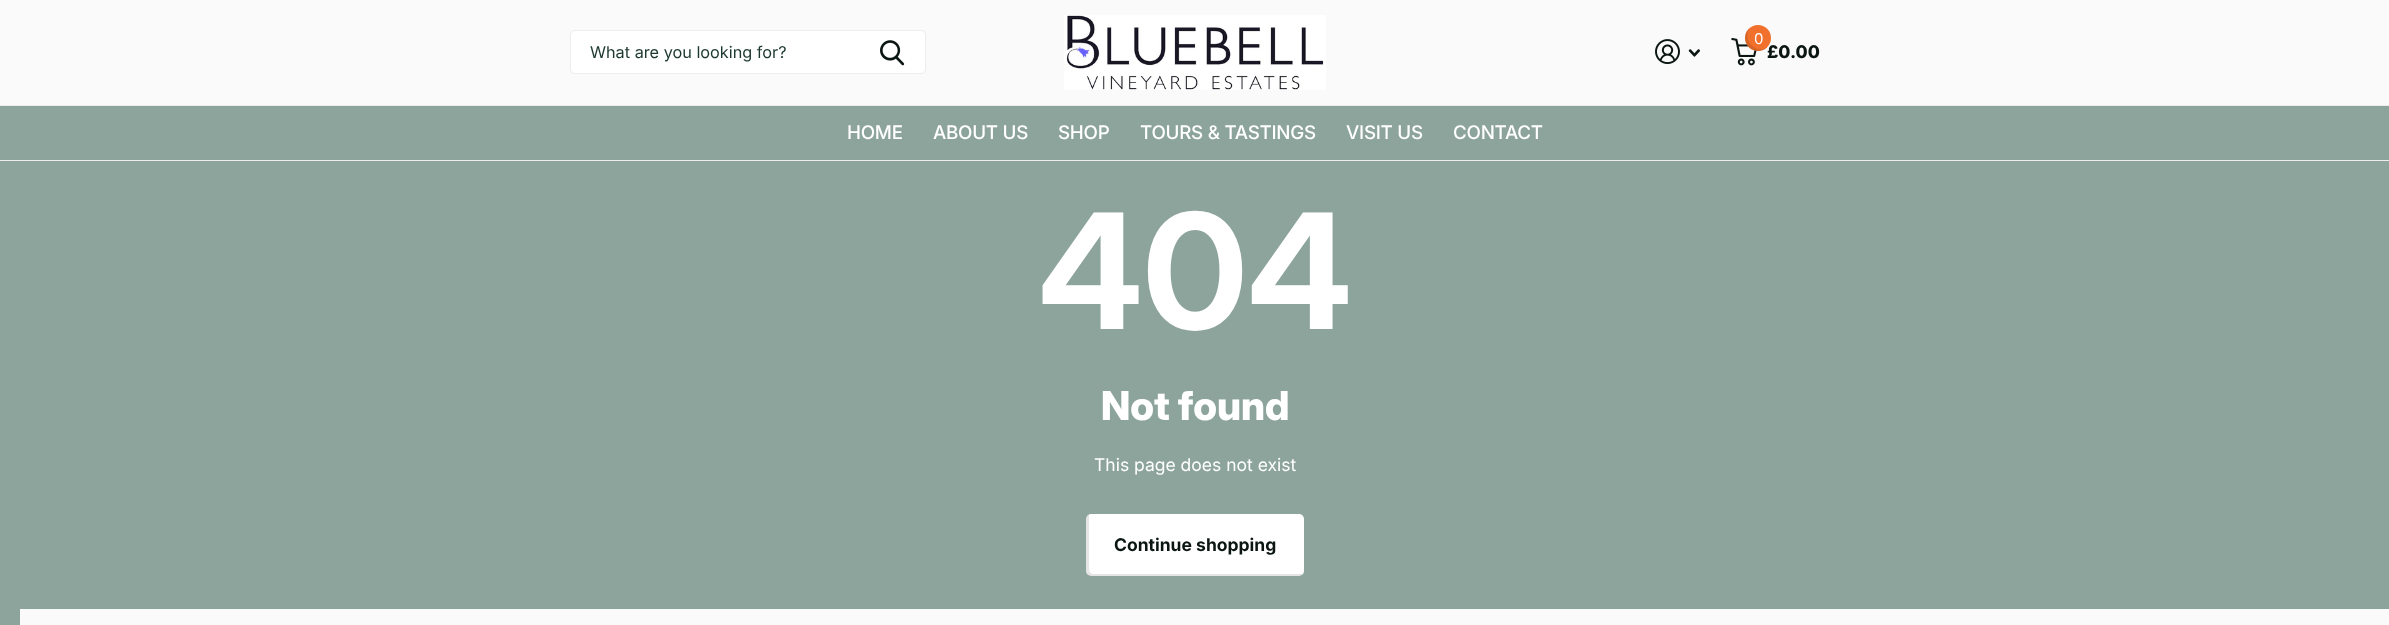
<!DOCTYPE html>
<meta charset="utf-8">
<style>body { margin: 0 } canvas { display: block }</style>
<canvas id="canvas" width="2389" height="625"></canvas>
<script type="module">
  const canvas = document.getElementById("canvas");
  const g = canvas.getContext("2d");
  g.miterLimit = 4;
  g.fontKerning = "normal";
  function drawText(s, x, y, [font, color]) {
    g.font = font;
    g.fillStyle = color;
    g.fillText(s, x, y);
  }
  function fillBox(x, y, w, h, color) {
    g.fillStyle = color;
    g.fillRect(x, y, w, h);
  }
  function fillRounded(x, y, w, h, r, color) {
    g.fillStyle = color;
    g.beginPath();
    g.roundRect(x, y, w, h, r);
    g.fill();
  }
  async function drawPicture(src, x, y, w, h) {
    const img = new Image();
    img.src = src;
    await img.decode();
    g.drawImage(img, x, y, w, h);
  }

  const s1 = ["16.25px Inter", "#1C3830"];
  const s2 = ["800 17.5px 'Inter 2'", "#0B1613"];
  const s3 = ["15px Inter", "#FFFFFF"];
  const s4 = ["500 18.75px Inter", "#FFFFFF"];
  const s5 = ["bold 160px Inter", "#FFFFFF"];
  const s6 = ["800 40px Inter", "#FFFFFF"];
  const s7 = ["17.5px Inter", "#FFFFFF"];
  const s8 = ["bold 17.5px 'Inter 2'", "#0B1613"];

  fillBox(0, 0, 2389, 625, "#8DA49D");
  fillBox(0, 0, 2389, 105, "#FAFAFA");
  fillBox(0, 160, 2389, 1, "#ECEDEC");
  g.fillStyle = "#FFFFFF";
  g.beginPath();
  g.roundRect(570.5, 30.5, 355, 43, 4.5);
  g.fill();
  g.strokeStyle = "#ECEDEC";
  g.stroke();
  drawText("What are you looking for?", 590, 58, s1);
  await drawPicture("pic1.png", 880, 40, 25, 26);
  await drawPicture("pic2.png", 1064, 15, 262, 75);
  await drawPicture("pic3.png", 1655, 39, 25, 26);
  await drawPicture("pic4.png", 1688, 49, 12, 8);
  await drawPicture("pic5.png", 1731, 38, 26, 28);
  drawText("£0.00", 1767, 58, s2);
  g.fillStyle = "#F0702C";
  g.beginPath();
  g.arc(1758, 38, 13, 0, Math.PI * 2);
  g.fill();
  g.fillStyle = "rgba(0, 0, 0, 0.1)";
  g.beginPath();
  g.moveTo(1766.5, 48);
  g.bezierCurveTo(1754.5, 53.5, 1742.5, 40, 1749.5, 28);
  g.bezierCurveTo(1736.5, 39.5, 1753.5, 59, 1766.5, 48);
  g.closePath();
  g.fill();
  drawText("0", 1754, 44, s3);
  fillBox(0, 105, 2389, 1, "#ECEDEC");
  g.letterSpacing = "-0.25px";
  drawText("HOME", 847, 139, s4);
  drawText("ABOUT US", 933, 139, s4);
  drawText("SHOP", 1058, 139, s4);
  drawText("TOURS & TASTINGS", 1140, 139, s4);
  drawText("VISIT US", 1346, 139, s4);
  drawText("CONTACT", 1453, 139, s4);
  g.letterSpacing = "0px";
  drawText("404", 1038, 329, s5);
  drawText("Not found", 1101, 420, s6);
  drawText("This page does not exist", 1094, 471, s7);
  fillRounded(1086, 514, 218, 62, 5, "#FFFFFF");
  g.fillStyle = "rgba(0, 0, 0, 0.1)";
  g.beginPath();
  g.moveTo(1089, 514);
  g.bezierCurveTo(1087, 515, 1086, 517, 1086, 519);
  g.lineTo(1086, 571);
  g.bezierCurveTo(1086, 574, 1088, 576, 1091, 576);
  g.lineTo(1299, 576);
  g.bezierCurveTo(1301, 576, 1302, 575, 1303, 574);
  g.lineTo(1301, 574);
  g.lineTo(1094, 574);
  g.bezierCurveTo(1091, 574, 1089, 572, 1089, 569);
  g.closePath();
  g.fill();
  drawText("Continue shopping", 1114, 551, s8);
  fillBox(20, 609, 2369, 16, "#FAFAFA");
</script>
